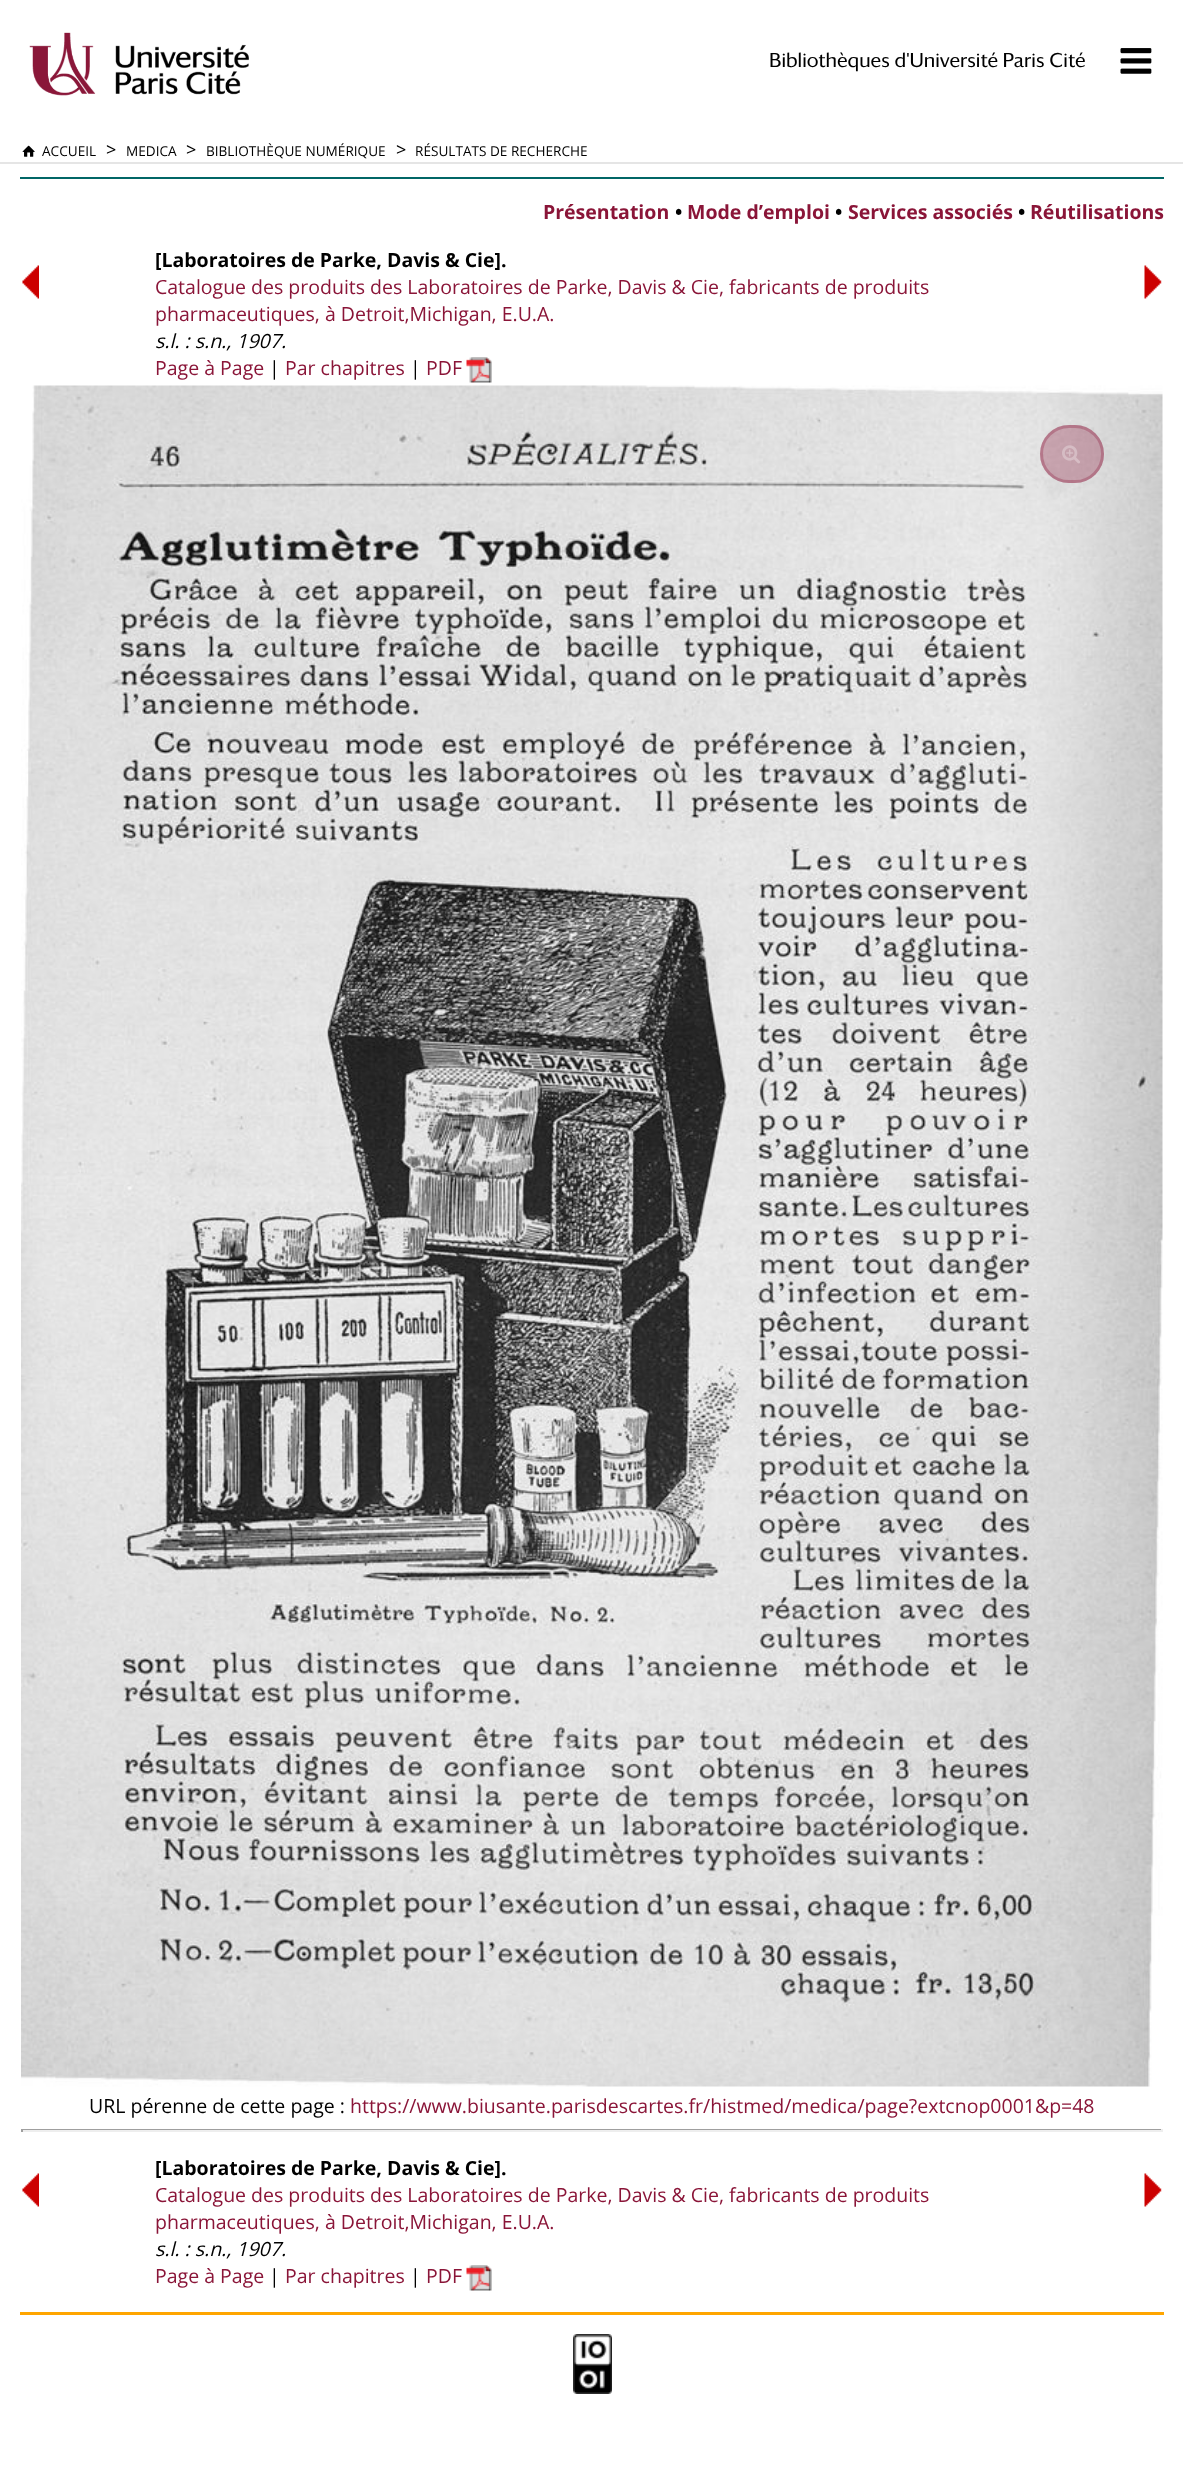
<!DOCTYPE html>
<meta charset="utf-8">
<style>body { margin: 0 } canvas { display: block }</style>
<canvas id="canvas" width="1183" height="2470"></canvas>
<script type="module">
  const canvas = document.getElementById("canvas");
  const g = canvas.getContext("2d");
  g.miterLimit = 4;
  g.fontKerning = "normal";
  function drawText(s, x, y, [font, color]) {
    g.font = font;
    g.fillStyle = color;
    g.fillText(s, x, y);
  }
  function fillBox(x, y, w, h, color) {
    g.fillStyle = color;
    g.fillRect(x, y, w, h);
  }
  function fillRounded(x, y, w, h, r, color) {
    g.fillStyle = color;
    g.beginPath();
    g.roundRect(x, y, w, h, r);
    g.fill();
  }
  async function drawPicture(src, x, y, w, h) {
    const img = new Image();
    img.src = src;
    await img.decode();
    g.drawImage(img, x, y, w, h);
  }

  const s1 = ["19.5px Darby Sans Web", "#000000"];
  const s2 = ["13.6px Open Sans", "#000000"];
  const s3 = ["18px Open Sans", "#000000"];
  const s4 = ["bold 19.5px Open Sans", "#8A1538"];
  const s5 = ["bold 19.5px Open Sans", "#000000"];
  const s6 = ["19.5px Open Sans", "#8A1538"];
  const s7 = ["italic 19.5px Open Sans", "#000000"];
  const s8 = ["19.5px Open Sans", "#000000"];

  fillBox(0, 0, 1183, 2470, "#FFFFFF");
  g.fillStyle = "rgba(0, 0, 0, 0.1)";
  g.beginPath();
  g.moveTo(0, 162);
  g.lineTo(0, 164);
  g.lineTo(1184, 164);
  g.lineTo(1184, 2);
  g.lineTo(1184, 162);
  g.closePath();
  g.fill();
  await drawPicture("pic1.png", 29, 32, 220, 64);
  drawText("Bibliothèques d'Université Paris Cité", 769, 67, s1);
  await drawPicture("pic2.png", 1120, 48, 32, 26);
  await drawPicture("pic3.png", 22, 145, 13, 12);
  drawText("ACCUEIL", 42, 156, s2);
  drawText(">", 106, 156, s3);
  drawText("MEDICA", 126, 156, s2);
  drawText(">", 186, 156, s3);
  drawText("BIBLIOTHÈQUE NUMÉRIQUE", 206, 156, s2);
  drawText(">", 396, 156, s3);
  drawText("RÉSULTATS DE RECHERCHE", 415, 156, s2);
  fillBox(20, 177, 1144, 2, "#006666");
  drawText("Présentation", 543, 219, s4);
  drawText("•", 675, 219, s5);
  drawText("Mode d’emploi", 687, 219, s4);
  drawText("•", 835, 219, s5);
  drawText("Services associés", 848, 219, s4);
  drawText("•", 1018, 219, s5);
  drawText("Réutilisations", 1030, 219, s4);
  await drawPicture("pic4.png", 22, 265, 17, 34);
  drawText("[Laboratoires de Parke, Davis & Cie].", 155, 267, s5);
  drawText("Catalogue des produits des Laboratoires de Parke, Davis & Cie, fabricants de produits", 155, 294, s6);
  drawText("pharmaceutiques, à Detroit,Michigan, E.U.A.", 155, 321, s6);
  drawText("s.l. : s.n., 1907.", 155, 348, s7);
  drawText("Page à Page", 155, 375, s6);
  drawText("|", 269, 375, s8);
  drawText("Par chapitres", 285, 375, s6);
  drawText("|", 410, 375, s8);
  drawText("PDF", 426, 375, s6);
  await drawPicture("pic5.png", 466, 357, 26, 26);
  await drawPicture("pic6.png", 1144, 265, 18, 34);
  await drawPicture("pic7.png", 21, 385, 1142, 1702);
  fillRounded(1040, 425, 64, 58, 29, "rgba(138, 21, 56, 0.3)");
  g.beginPath();
  g.roundRect(1041.5, 426.5, 61, 55, 27.5);
  g.strokeStyle = "rgba(138, 21, 56, 0.3)";
  g.lineWidth = 3;
  g.stroke();
  await drawPicture("pic8.png", 1062, 445, 18, 19);
  drawText("URL pérenne de cette page :", 89, 2113, s8);
  drawText("https://www.biusante.parisdescartes.fr/histmed/medica/page?extcnop0001&p=48", 350, 2113, s6);
  fillBox(21, 2129, 1142, 1, "#9F9F9F");
  fillBox(1161, 2129, 2, 3, "#EEEEEE");
  fillBox(21, 2130, 1142, 2, "#EEEEEE");
  fillBox(21, 2129, 2, 3, "#9F9F9F");
  await drawPicture("pic4.png", 22, 2173, 17, 34);
  drawText("[Laboratoires de Parke, Davis & Cie].", 155, 2175, s5);
  drawText("Catalogue des produits des Laboratoires de Parke, Davis & Cie, fabricants de produits", 155, 2202, s6);
  drawText("pharmaceutiques, à Detroit,Michigan, E.U.A.", 155, 2229, s6);
  drawText("s.l. : s.n., 1907.", 155, 2256, s7);
  drawText("Page à Page", 155, 2283, s6);
  drawText("|", 269, 2283, s8);
  drawText("Par chapitres", 285, 2283, s6);
  drawText("|", 410, 2283, s8);
  drawText("PDF", 426, 2283, s6);
  await drawPicture("pic5.png", 466, 2265, 26, 26);
  await drawPicture("pic6.png", 1144, 2173, 18, 34);
  fillBox(20, 2312, 1144, 3, "#FFA500");
  await drawPicture("pic9.png", 573, 2334, 39, 60);
</script>
